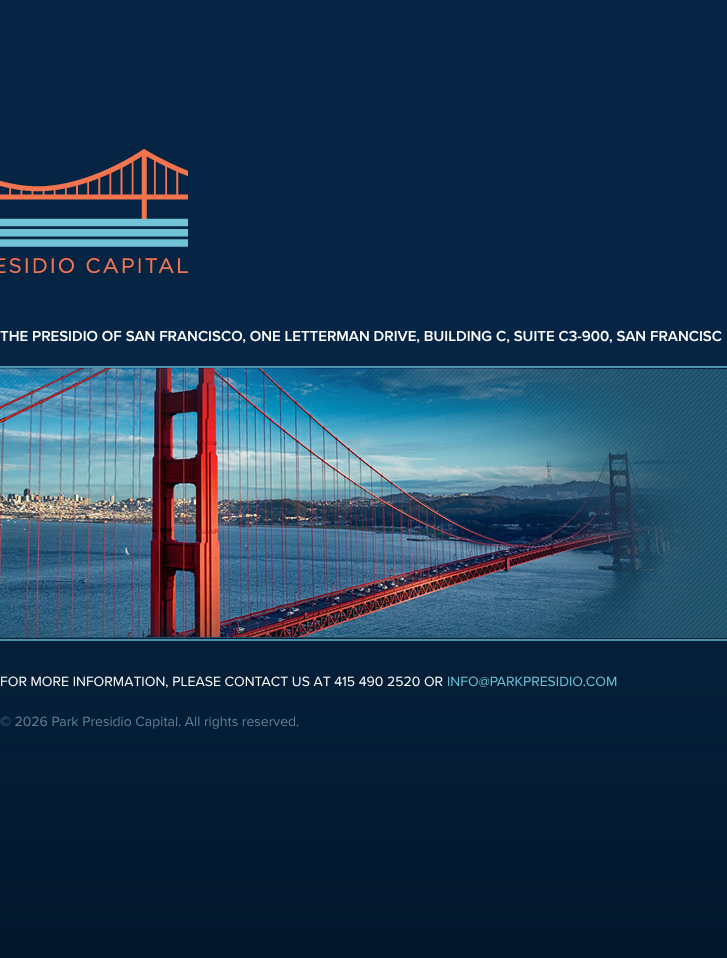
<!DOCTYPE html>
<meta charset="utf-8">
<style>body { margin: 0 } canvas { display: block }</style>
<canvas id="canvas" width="727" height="958"></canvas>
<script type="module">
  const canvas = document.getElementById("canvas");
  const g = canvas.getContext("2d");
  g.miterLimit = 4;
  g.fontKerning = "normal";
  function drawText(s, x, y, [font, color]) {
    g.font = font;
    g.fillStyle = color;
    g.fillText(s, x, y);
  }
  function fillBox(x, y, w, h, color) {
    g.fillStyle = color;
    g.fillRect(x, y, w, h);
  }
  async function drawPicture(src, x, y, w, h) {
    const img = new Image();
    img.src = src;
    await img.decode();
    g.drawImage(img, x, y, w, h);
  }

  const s1 = ["600 15px 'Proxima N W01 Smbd'", "#FFFFFF"];
  const s2 = ["14px 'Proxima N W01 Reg'", "#FFFFFF"];
  const s3 = ["14px 'Proxima N W01 Reg'", "#6CC3D8"];
  const s4 = ["14px 'Proxima N W01 Reg'", "#657F98"];

  fillBox(0, 0, 727, 958, "#FFFFFF");
  await drawPicture("pic1.png", 0, 0, 727, 958);
  drawText("THE PRESIDIO OF SAN FRANCISCO, ONE LETTERMAN DRIVE, BUILDING C, SUITE C3-900, SAN FRANCISC", 0, 341, s1);
  drawText("FOR MORE INFORMATION, PLEASE CONTACT US AT 415 490 2520 OR", 0, 686, s2);
  drawText("INFO@PARKPRESIDIO.COM", 447, 686, s3);
  drawText("© 2026 Park Presidio Capital. All rights reserved.", 0, 726, s4);
</script>
